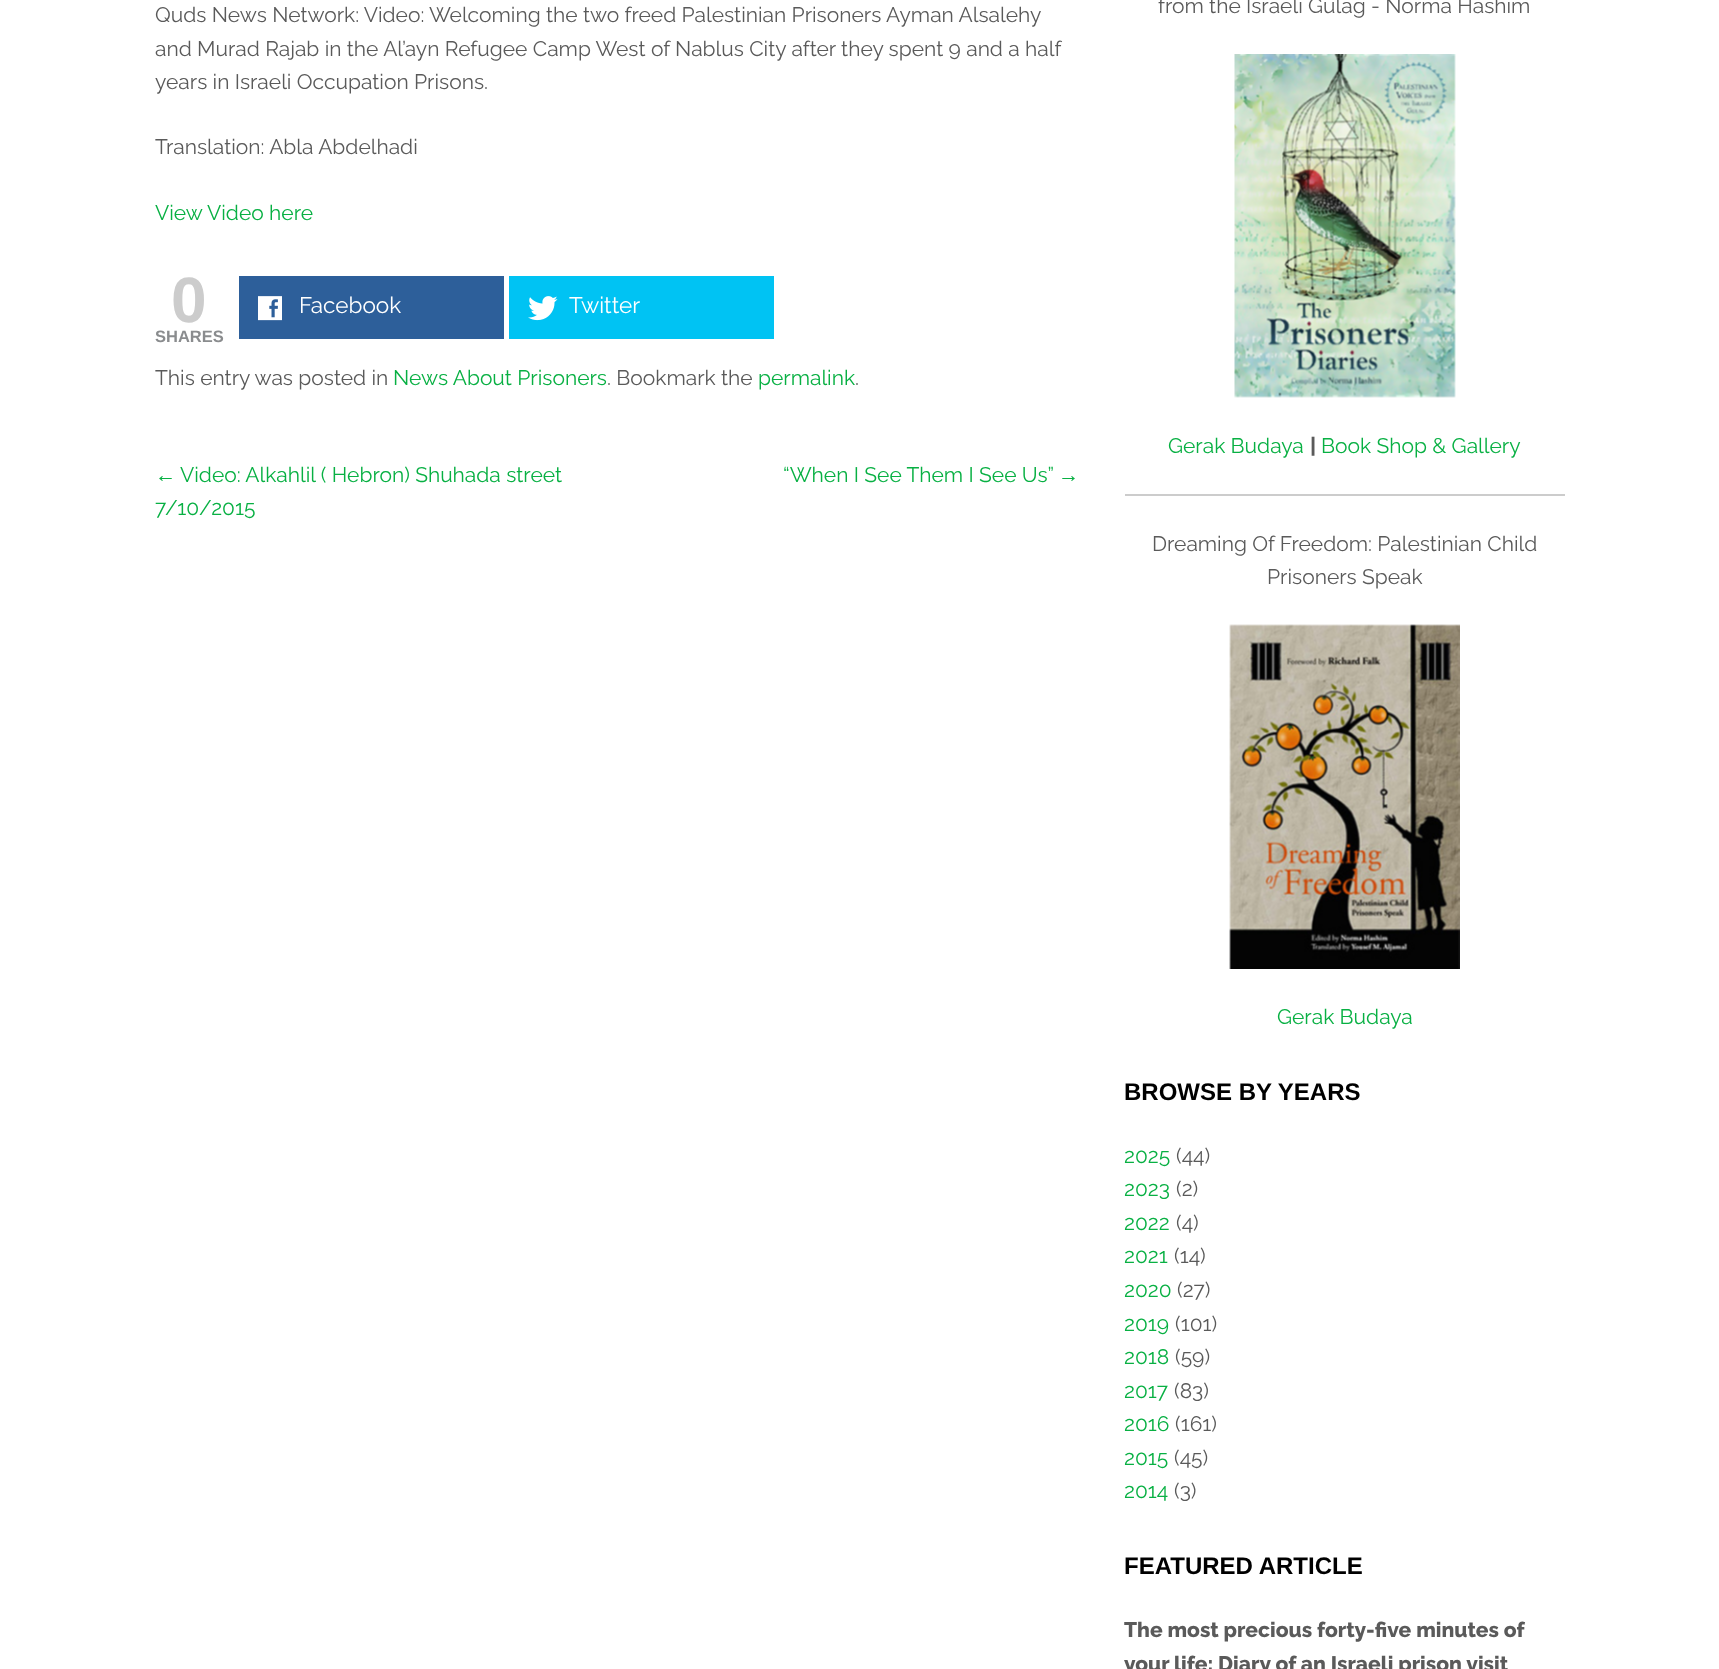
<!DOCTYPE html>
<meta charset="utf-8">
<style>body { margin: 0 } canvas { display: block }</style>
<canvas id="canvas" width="1719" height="1669"></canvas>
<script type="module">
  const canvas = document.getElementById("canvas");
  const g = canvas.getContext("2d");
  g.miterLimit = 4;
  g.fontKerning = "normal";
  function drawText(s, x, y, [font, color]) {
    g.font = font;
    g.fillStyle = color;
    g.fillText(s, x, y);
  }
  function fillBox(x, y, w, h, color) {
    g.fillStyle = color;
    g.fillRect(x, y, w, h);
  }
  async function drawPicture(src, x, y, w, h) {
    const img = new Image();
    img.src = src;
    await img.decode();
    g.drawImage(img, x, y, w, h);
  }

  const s1 = ["21px Raleway", "#5A5A5A"];
  const s2 = ["21px Raleway", "#08B043"];
  const s3 = ["bold 64px Liberation Sans", "#CCCCCC"];
  const s4 = ["bold 16.5px Liberation Sans", "#8A8C8E"];
  const s5 = ["22.5px Raleway", "#FFFFFF"];
  const s6 = ["21px Liberation Sans", "#08B043"];
  const s7 = ["800 21px Raleway", "#5A5A5A"];
  const s8 = ["bold 24px Liberation Sans", "#000000"];

  fillBox(0, 0, 1719, 1669, "#FFFFFF");
  drawText("Quds News Network: Video: Welcoming the two freed Palestinian Prisoners Ayman Alsalehy", 155, 22, s1);
  drawText("and Murad Rajab in the Al’ayn Refugee Camp West of Nablus City after they spent 9 and a half", 155, 56, s1);
  drawText("years in Israeli Occupation Prisons.", 155, 89, s1);
  drawText("Translation: Abla Abdelhadi", 155, 154, s1);
  drawText("View Video here", 155, 220, s2);
  drawText("0", 171, 322, s3);
  drawText("SHARES", 155, 342, s4);
  fillBox(239, 276, 265, 63, "#2D5F9A");
  await drawPicture("pic1.png", 258, 296, 24, 25);
  drawText("Facebook", 299, 313, s5);
  fillBox(509, 276, 265, 63, "#00C3F3");
  await drawPicture("pic2.png", 528, 296, 30, 25);
  drawText("Twitter", 569, 313, s5);
  drawText("This entry was posted in", 155, 385, s1);
  drawText("News About Prisoners", 393, 385, s2);
  drawText(". Bookmark the", 607, 385, s1);
  drawText("permalink", 758, 385, s2);
  drawText(".", 855, 385, s1);
  drawText("←", 155, 482, s6);
  drawText("Video: Alkahlil ( Hebron) Shuhada street", 180, 482, s2);
  drawText("7/10/2015", 155, 515, s2);
  drawText("“When I See Them I See Us”", 783, 482, s2);
  drawText("→", 1058, 482, s6);
  drawText("from the Israeli Gulag - Norma Hashim", 1158, 13, s1);
  await drawPicture("pic3.png", 1234, 54, 222, 344);
  drawText("Gerak Budaya", 1168, 453, s2);
  drawText("|", 1310, 453, s7);
  drawText("Book Shop & Gallery", 1321, 453, s2);
  fillBox(1125, 494, 440, 2, "#CCCCCC");
  drawText("Dreaming Of Freedom: Palestinian Child", 1152, 551, s1);
  drawText("Prisoners Speak", 1267, 584, s1);
  await drawPicture("pic4.png", 1229, 624, 231, 345);
  drawText("Gerak Budaya", 1277, 1024, s2);
  drawText("BROWSE BY YEARS", 1124, 1100, s8);
  drawText("2025", 1124, 1163, s2);
  drawText("(44)", 1176, 1163, s1);
  drawText("2023", 1124, 1196, s2);
  drawText("(2)", 1176, 1196, s1);
  drawText("2022", 1124, 1230, s2);
  drawText("(4)", 1176, 1230, s1);
  drawText("2021", 1124, 1263, s2);
  drawText("(14)", 1174, 1263, s1);
  drawText("2020", 1124, 1297, s2);
  drawText("(27)", 1177, 1297, s1);
  drawText("2019", 1124, 1331, s2);
  drawText("(101)", 1175, 1331, s1);
  drawText("2018", 1124, 1364, s2);
  drawText("(59)", 1175, 1364, s1);
  drawText("2017", 1124, 1398, s2);
  drawText("(83)", 1174, 1398, s1);
  drawText("2016", 1124, 1431, s2);
  drawText("(161)", 1175, 1431, s1);
  drawText("2015", 1124, 1465, s2);
  drawText("(45)", 1174, 1465, s1);
  drawText("2014", 1124, 1498, s2);
  drawText("(3)", 1174, 1498, s1);
  drawText("FEATURED ARTICLE", 1124, 1574, s8);
  drawText("The most precious forty-five minutes of", 1124, 1637, s7);
  drawText("your life: Diary of an Israeli prison visit", 1124, 1671, s7);
</script>
